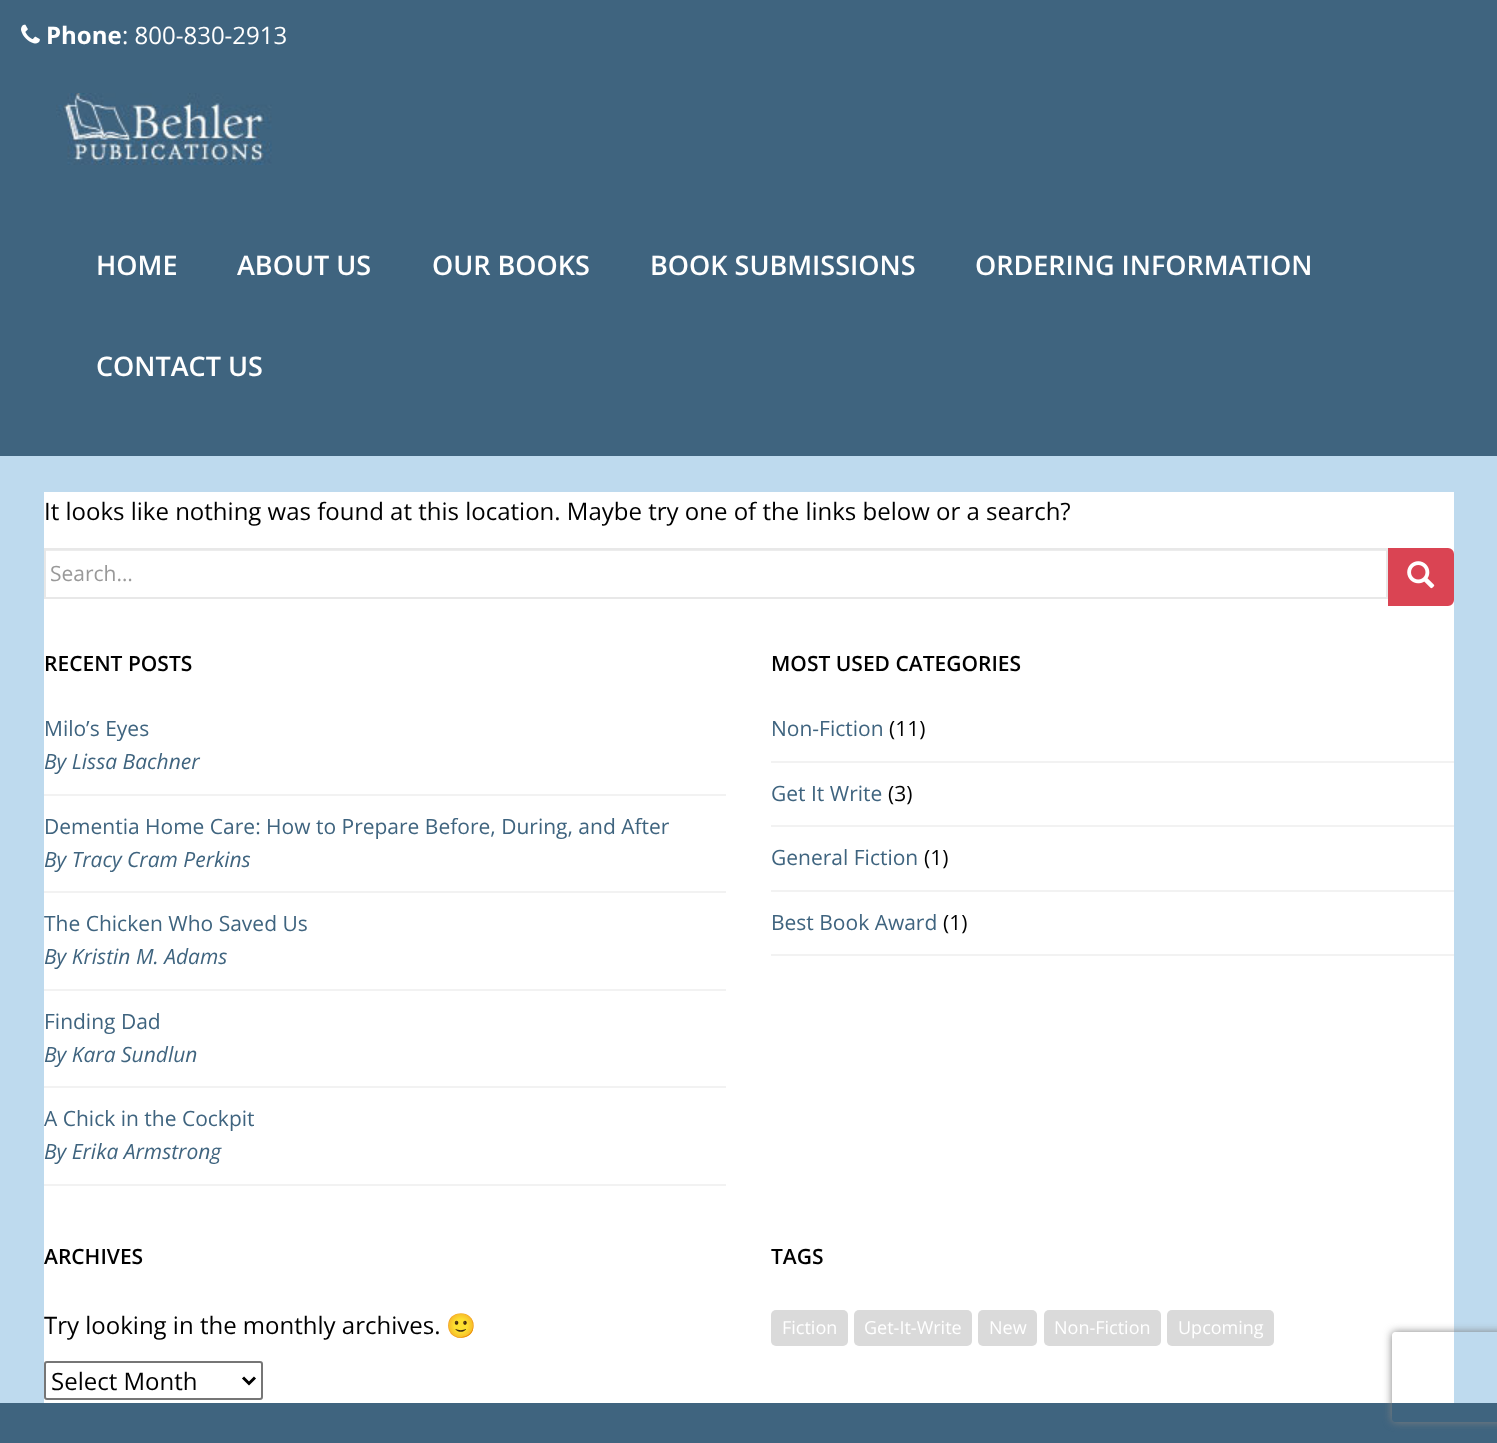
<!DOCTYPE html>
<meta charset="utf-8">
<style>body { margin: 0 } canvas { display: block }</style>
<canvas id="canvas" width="1497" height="1443"></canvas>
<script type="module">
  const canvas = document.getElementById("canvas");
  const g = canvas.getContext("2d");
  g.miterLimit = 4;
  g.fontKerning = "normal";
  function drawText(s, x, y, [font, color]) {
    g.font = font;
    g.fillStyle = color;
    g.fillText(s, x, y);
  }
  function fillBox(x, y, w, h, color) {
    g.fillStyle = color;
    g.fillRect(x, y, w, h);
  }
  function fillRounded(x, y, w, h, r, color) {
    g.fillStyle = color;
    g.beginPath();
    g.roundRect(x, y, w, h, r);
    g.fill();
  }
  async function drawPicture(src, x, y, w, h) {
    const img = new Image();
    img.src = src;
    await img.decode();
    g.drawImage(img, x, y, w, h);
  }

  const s1 = ["bold 24px Open Sans", "#FFFFFF"];
  const s2 = ["24px Open Sans", "#FFFFFF"];
  const s3 = ["600 27px Open Sans", "#FFFFFF"];
  const s4 = ["24px Open Sans", "#000000"];
  const s5 = ["21px Open Sans", "#999999"];
  const s6 = ["600 21px Open Sans", "#000000"];
  const s7 = ["21px Open Sans", "#3F647F"];
  const s8 = ["italic 21px Open Sans", "#3F647F"];
  const s9 = ["21px Open Sans", "#000000"];
  const s10 = ["24px Noto Color Emoji", "#000000"];
  const s11 = ["18px Open Sans", "#FFFFFF"];

  fillBox(0, 0, 1497, 1443, "#BEDAEE");
  fillBox(0, 0, 1497, 456, "#3F647F");
  await drawPicture("pic1.png", 21, 24, 19, 20);
  drawText("Phone", 46, 44, s1);
  drawText(": 800-830-2913", 122, 44, s2);
  await drawPicture("pic2.png", 56, 93, 216, 72);
  drawText("HOME", 96, 275, s3);
  drawText("ABOUT US", 237, 275, s3);
  drawText("OUR BOOKS", 432, 275, s3);
  drawText("BOOK SUBMISSIONS", 650, 275, s3);
  drawText("ORDERING INFORMATION", 975, 275, s3);
  drawText("CONTACT US", 96, 376, s3);
  fillBox(44, 492, 1410, 911, "#FFFFFF");
  drawText("It looks like nothing was found at this location. Maybe try one of the links below or a search?", 44, 520, s4);
  fillBox(45, 550, 1341, 1, "#ECECEC");
  g.strokeStyle = "#E8E8E8";
  g.lineWidth = 2;
  g.strokeRect(45, 549, 1342, 49);
  drawText("Search…", 50, 581, s5);
  g.fillStyle = "#DA4453";
  g.beginPath();
  g.roundRect(1389, 549, 64, 56, [0, 5, 5, 0]);
  g.fill();
  g.strokeStyle = "#DA4453";
  g.stroke();
  await drawPicture("pic3.png", 1407, 561, 28, 28);
  drawText("RECENT POSTS", 44, 671, s6);
  fillBox(44, 794, 682, 2, "#F2F2F2");
  drawText("Milo’s Eyes", 44, 736, s7);
  drawText("By Lissa Bachner", 44, 769, s8);
  fillBox(44, 891, 682, 2, "#F2F2F2");
  drawText("Dementia Home Care: How to Prepare Before, During, and After", 44, 834, s7);
  drawText("By Tracy Cram Perkins", 44, 867, s8);
  fillBox(44, 989, 682, 2, "#F2F2F2");
  drawText("The Chicken Who Saved Us", 44, 931, s7);
  drawText("By Kristin M. Adams", 44, 964, s8);
  fillBox(44, 1086, 682, 2, "#F2F2F2");
  drawText("Finding Dad", 44, 1029, s7);
  drawText("By Kara Sundlun", 44, 1062, s8);
  fillBox(44, 1184, 682, 2, "#F2F2F2");
  drawText("A Chick in the Cockpit", 44, 1126, s7);
  drawText("By Erika Armstrong", 44, 1159, s8);
  drawText("MOST USED CATEGORIES", 771, 671, s6);
  fillBox(771, 761, 683, 2, "#F2F2F2");
  drawText("Non-Fiction", 771, 736, s7);
  drawText("(11)", 889, 736, s9);
  fillBox(771, 825, 683, 2, "#F2F2F2");
  drawText("Get It Write", 771, 801, s7);
  drawText("(3)", 888, 801, s9);
  fillBox(771, 890, 683, 2, "#F2F2F2");
  drawText("General Fiction", 771, 865, s7);
  drawText("(1)", 924, 865, s9);
  fillBox(771, 954, 683, 2, "#F2F2F2");
  drawText("Best Book Award", 771, 930, s7);
  drawText("(1)", 943, 930, s9);
  drawText("ARCHIVES", 44, 1264, s6);
  drawText("Try looking in the monthly archives.", 44, 1334, s4);
  drawText("🙂", 446, 1334, s10);
  g.beginPath();
  g.roundRect(45, 1362, 217, 37, 2);
  g.strokeStyle = "#767676";
  g.stroke();
  g.beginPath();
  g.moveTo(243, 1377.5);
  g.lineTo(249, 1383.5);
  g.lineTo(255, 1377.5);
  g.strokeStyle = "#000000";
  g.lineWidth = 3;
  g.stroke();
  drawText("Select Month", 51, 1390, s4);
  drawText("TAGS", 771, 1264, s6);
  fillRounded(771, 1310, 77, 36, 5, "#DADADA");
  drawText("Fiction", 782, 1334, s11);
  fillRounded(854, 1310, 118, 36, 5, "#DADADA");
  drawText("Get-It-Write", 864, 1334, s11);
  fillRounded(978, 1310, 59, 36, 5, "#DADADA");
  drawText("New", 989, 1334, s11);
  fillRounded(1044, 1310, 117, 36, 5, "#DADADA");
  drawText("Non-Fiction", 1054, 1334, s11);
  fillRounded(1167, 1310, 107, 36, 5, "#DADADA");
  drawText("Upcoming", 1178, 1334, s11);
  fillBox(0, 1403, 1497, 40, "#3F647F");
  g.save();
  g.beginPath();
  g.moveTo(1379, 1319);
  g.lineTo(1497, 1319);
  g.lineTo(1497, 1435);
  g.lineTo(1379, 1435);
  g.closePath();
  g.moveTo(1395, 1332);
  g.lineTo(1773, 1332);
  g.bezierCurveTo(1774.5, 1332, 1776, 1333.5, 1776, 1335);
  g.lineTo(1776, 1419);
  g.bezierCurveTo(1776, 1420.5, 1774.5, 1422, 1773, 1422);
  g.lineTo(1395, 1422);
  g.bezierCurveTo(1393.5, 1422, 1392, 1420.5, 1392, 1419);
  g.lineTo(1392, 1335);
  g.bezierCurveTo(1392, 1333.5, 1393.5, 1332, 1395, 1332);
  g.closePath();
  g.clip("evenodd");
  g.fillStyle = "#808080";
  g.filter = "blur(4px)";
  g.beginPath();
  g.roundRect(1392, 1332, 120, 90, 3);
  g.fill();
  g.filter = "none";
  g.restore();
</script>
